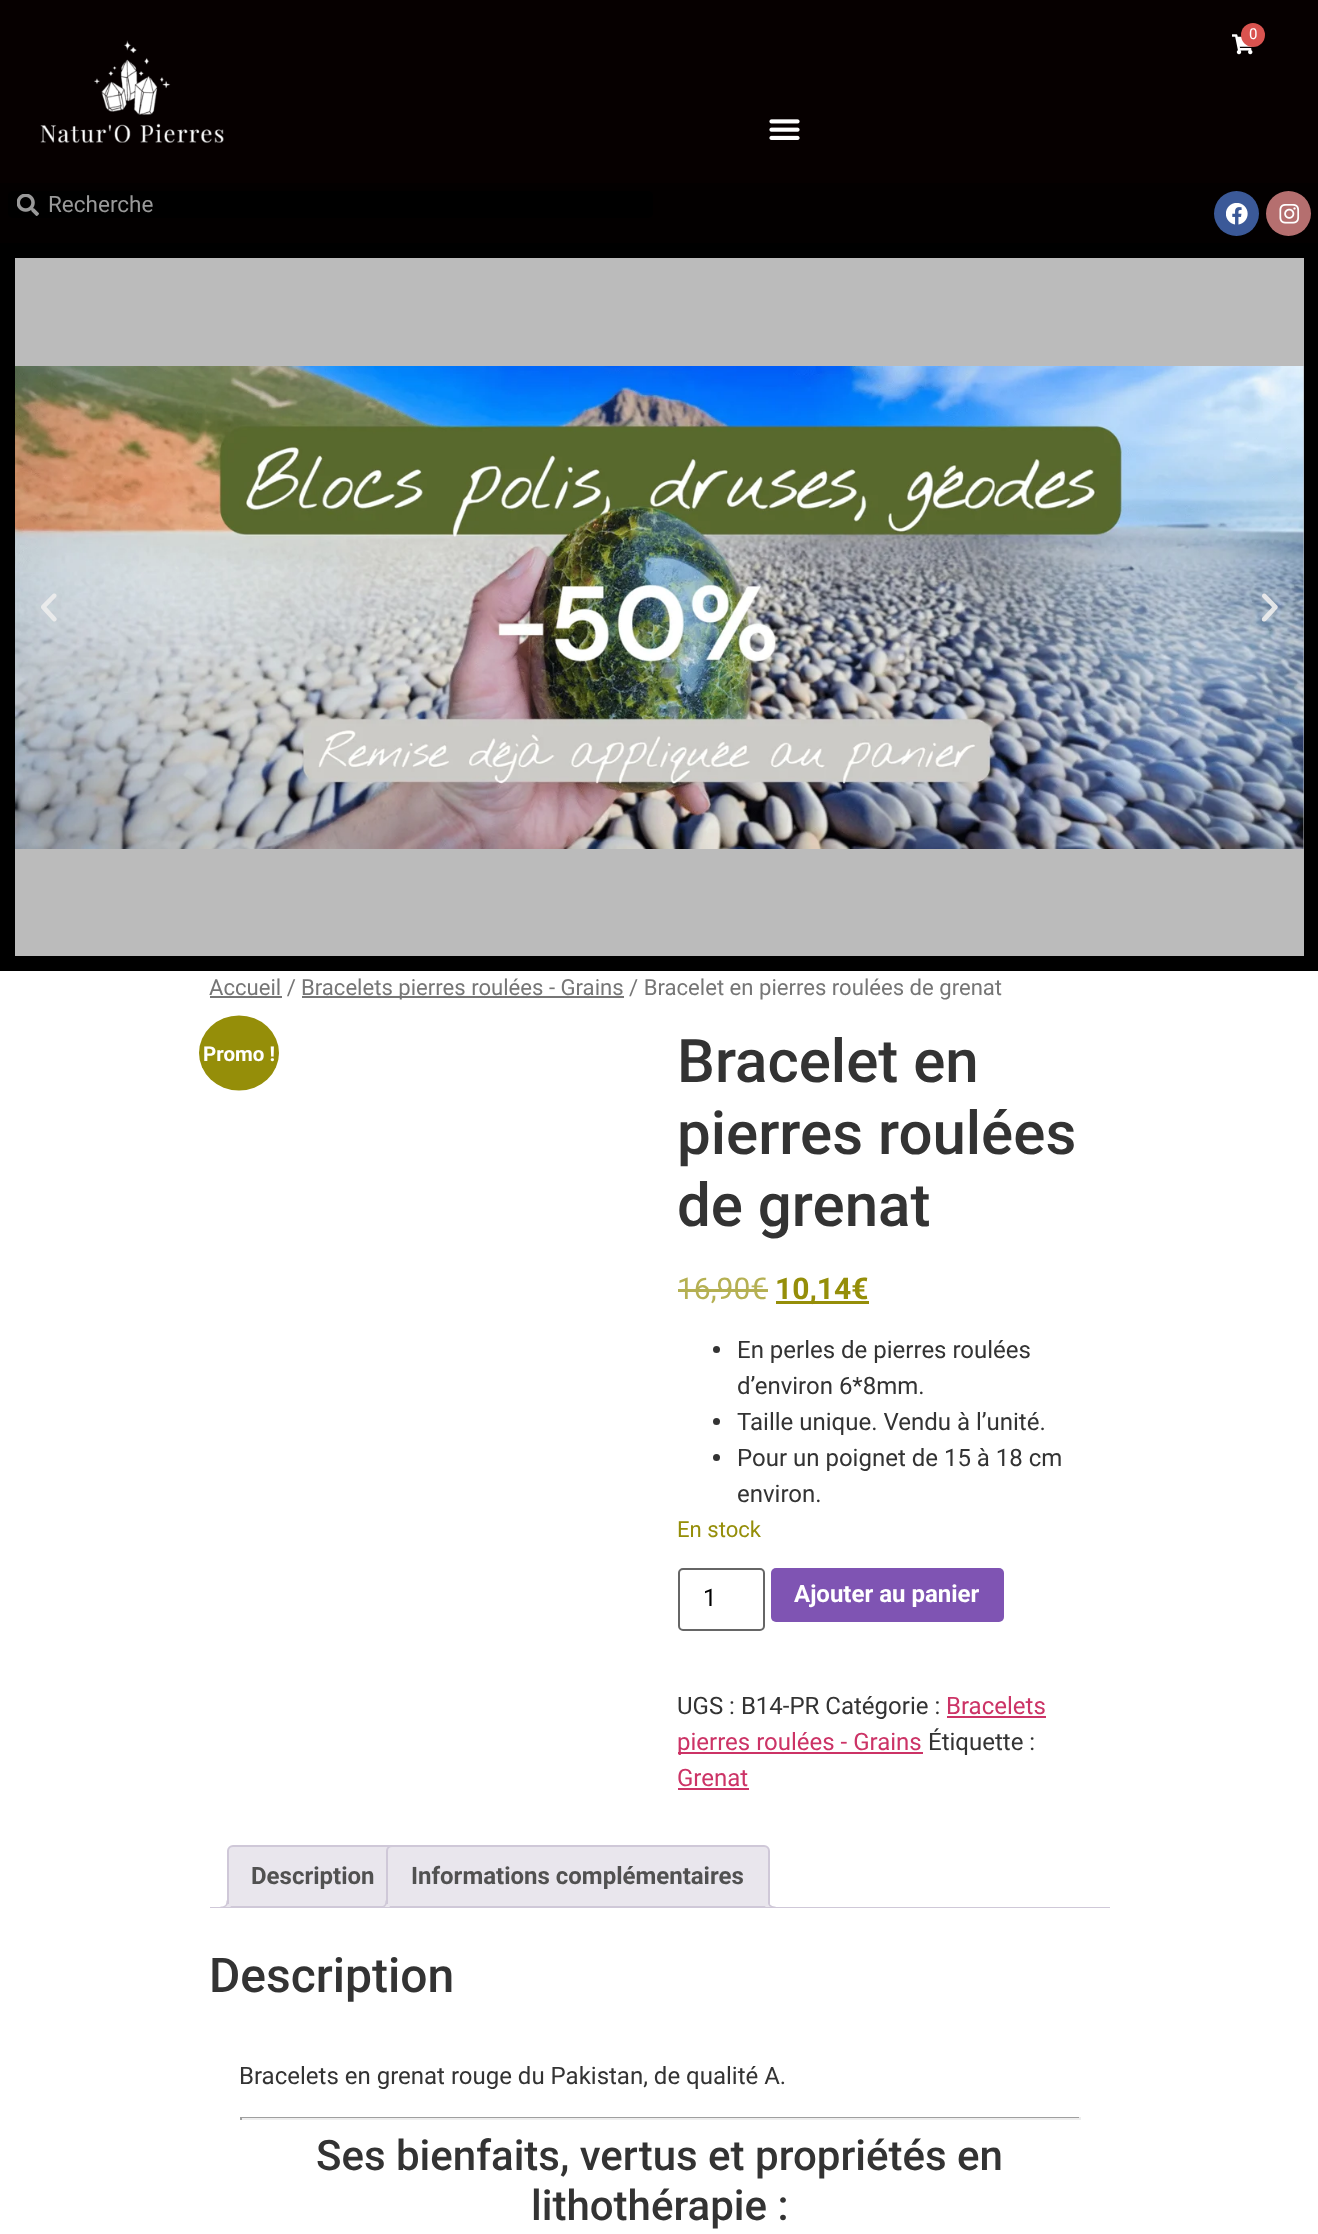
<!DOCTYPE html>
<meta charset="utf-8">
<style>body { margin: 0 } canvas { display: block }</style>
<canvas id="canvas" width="1318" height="2234"></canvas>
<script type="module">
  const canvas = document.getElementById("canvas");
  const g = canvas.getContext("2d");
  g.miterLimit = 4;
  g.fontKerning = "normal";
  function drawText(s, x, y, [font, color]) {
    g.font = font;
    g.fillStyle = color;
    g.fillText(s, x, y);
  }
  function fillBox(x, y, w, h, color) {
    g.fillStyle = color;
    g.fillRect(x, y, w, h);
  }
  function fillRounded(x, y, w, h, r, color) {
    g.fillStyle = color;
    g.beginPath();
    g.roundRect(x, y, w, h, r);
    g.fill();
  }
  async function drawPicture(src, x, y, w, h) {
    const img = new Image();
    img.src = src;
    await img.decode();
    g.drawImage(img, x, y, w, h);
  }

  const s1 = ["15px Roboto", "#FFFFFF"];
  const s2 = ["22.5px Roboto", "#999999"];
  const s3 = ["22.1px Roboto", "#767676"];
  const s4 = ["bold 20.5px Roboto", "#FFFFFF"];
  const s5 = ["500 60px Roboto", "#333333"];
  const s6 = ["30px Roboto", "#B5B053"];
  const s7 = ["bold 30px Roboto", "#958E09"];
  const s8 = ["24px Roboto", "#333333"];
  const s9 = ["22.1px Roboto", "#958E09"];
  const s10 = ["24px Roboto", "#000000"];
  const s11 = ["bold 24px Roboto", "#FFFFFF"];
  const s12 = ["24px Roboto", "#CC3366"];
  const s13 = ["bold 24px Roboto", "#515151"];
  const s14 = ["500 48px Roboto", "#333333"];
  const s15 = ["500 42px Roboto", "#333333"];

  fillBox(0, 0, 1318, 2234, "#FFFFFF");
  fillBox(0, 0, 1318, 183, "#060000");
  await drawPicture("pic1.png", 1232, 34, 21, 21);
  g.fillStyle = "#D9534F";
  g.beginPath();
  g.arc(1253, 35, 12, 0, Math.PI * 2);
  g.fill();
  drawText("0", 1249, 39, s1);
  await drawPicture("pic2.png", 769, 119, 31, 21);
  await drawPicture("pic3.png", 40, 40, 184, 103);
  fillBox(0, 183, 1318, 60, "#030000");
  fillRounded(8, 191, 645, 27, 5, "#000000");
  await drawPicture("pic4.png", 17, 194, 22, 22);
  drawText("Recherche", 48, 212, s2);
  g.fillStyle = "#3B5998";
  g.beginPath();
  g.arc(1236.5, 213.5, 22.5, 0, Math.PI * 2);
  g.fill();
  await drawPicture("pic5.png", 1226, 203, 22, 22);
  g.fillStyle = "#B56F6F";
  g.beginPath();
  g.arc(1288.5, 213.5, 22.5, 0, Math.PI * 2);
  g.fill();
  await drawPicture("pic6.png", 1279, 204, 21, 20);
  fillBox(0, 243, 1318, 728, "#000000");
  fillBox(15, 258, 1289, 698, "#BBBBBB");
  await drawPicture("pic7.png", 15, 366, 1289, 483);
  await drawPicture("pic8.png", 41, 593, 16, 29);
  await drawPicture("pic9.png", 1261, 593, 17, 29);
  fillBox(210, 996, 72, 2, "#767676");
  drawText("Accueil /", 209, 995, s3);
  fillBox(302, 996, 322, 2, "#767676");
  drawText("Bracelets pierres roulées - Grains / Bracelet en pierres roulées de grenat", 301, 995, s3);
  g.fillStyle = "#958E09";
  g.beginPath();
  g.ellipse(239, 1053, 40, 37.5, 0, 0, Math.PI * 2);
  g.fill();
  drawText("Promo !", 203, 1061, s4);
  drawText("Bracelet en", 677, 1082, s5);
  drawText("pierres roulées", 677, 1154, s5);
  drawText("de grenat", 677, 1226, s5);
  drawText("16,90€", 677, 1299, s6);
  fillBox(678, 1289, 90, 3, "#B5B053");
  fillBox(776, 1301, 93, 3, "#958E09");
  drawText("10,14€", 775, 1299, s7);
  g.fillStyle = "#333333";
  g.beginPath();
  g.arc(716.5, 1349.5, 3.5, 0, Math.PI * 2);
  g.fill();
  drawText("En perles de pierres roulées", 737, 1358, s8);
  drawText("d’environ 6*8mm.", 737, 1394, s8);
  g.beginPath();
  g.arc(716.5, 1421.5, 3.5, 0, Math.PI * 2);
  g.fill();
  drawText("Taille unique. Vendu à l’unité.", 737, 1430, s8);
  g.beginPath();
  g.arc(716.5, 1457.5, 3.5, 0, Math.PI * 2);
  g.fill();
  drawText("Pour un poignet de 15 à 18 cm", 737, 1466, s8);
  drawText("environ.", 737, 1502, s8);
  drawText("En stock", 677, 1537, s9);
  g.beginPath();
  g.roundRect(679, 1569, 85, 61, 4);
  g.strokeStyle = "#666666";
  g.lineWidth = 2;
  g.stroke();
  drawText("1", 703, 1606, s10);
  fillRounded(771, 1568, 233, 54, 5, "#7F54B3");
  drawText("Ajouter au panier", 794, 1602, s11);
  drawText("UGS : B14-PR Catégorie :", 677, 1714, s8);
  drawText("Bracelets", 946, 1714, s12);
  fillBox(947, 1716, 99, 2, "#CC3366");
  fillBox(678, 1752, 245, 2, "#CC3366");
  drawText("pierres roulées - Grains", 677, 1750, s12);
  drawText("Étiquette :", 928, 1750, s8);
  drawText("Grenat", 677, 1786, s12);
  fillBox(678, 1788, 71, 2, "#CC3366");
  g.fillStyle = "#E9E6ED";
  g.beginPath();
  g.roundRect(228, 1846, 172, 61, [5, 5, 0, 0]);
  g.fill();
  g.strokeStyle = "#CFC8D8";
  g.stroke();
  drawText("Description", 251, 1884, s13);
  g.save();
  g.beginPath();
  g.rect(210, 1845, 900, 63);
  g.clip();
  g.fillStyle = "#E9E6ED";
  g.beginPath();
  g.moveTo(224, 1907.5);
  g.lineTo(224, 1911);
  g.bezierCurveTo(228.5, 1911, 231, 1908.5, 231, 1904);
  g.lineTo(227.5, 1904);
  g.bezierCurveTo(227, 1905.5, 225.5, 1907, 224, 1907.5);
  g.closePath();
  g.fill();
  g.restore();
  g.fillStyle = "#CFC8D8";
  g.beginPath();
  g.moveTo(220.5, 1900.5);
  g.lineTo(228, 1900.5);
  g.bezierCurveTo(228, 1906, 226, 1908, 220.5, 1908);
  g.closePath();
  g.moveTo(220.5, 1900.5);
  g.lineTo(226.5, 1900.5);
  g.bezierCurveTo(226.5, 1905, 225, 1906.5, 220.5, 1906.5);
  g.closePath();
  g.fill("evenodd");
  g.fillStyle = "#E9E6ED";
  g.beginPath();
  g.roundRect(387, 1846, 382, 61, [5, 5, 0, 0]);
  g.fill();
  g.stroke();
  drawText("Informations complémentaires", 411, 1884, s13);
  g.save();
  g.beginPath();
  g.rect(210, 1845, 900, 63);
  g.clip();
  g.fillStyle = "#E9E6ED";
  g.beginPath();
  g.moveTo(383, 1907.5);
  g.lineTo(383, 1911);
  g.bezierCurveTo(387.5, 1911, 390, 1908.5, 390, 1904);
  g.lineTo(386.5, 1904);
  g.bezierCurveTo(386, 1905.5, 384.5, 1907, 383, 1907.5);
  g.closePath();
  g.fill();
  g.restore();
  g.fillStyle = "#CFC8D8";
  g.beginPath();
  g.moveTo(379.5, 1900.5);
  g.lineTo(387, 1900.5);
  g.bezierCurveTo(387, 1906, 385, 1908, 379.5, 1908);
  g.closePath();
  g.moveTo(379.5, 1900.5);
  g.lineTo(385.5, 1900.5);
  g.bezierCurveTo(385.5, 1905, 384, 1906.5, 379.5, 1906.5);
  g.closePath();
  g.fill("evenodd");
  g.save();
  g.beginPath();
  g.rect(210, 1845, 900, 63);
  g.clip();
  g.fillStyle = "#E9E6ED";
  g.beginPath();
  g.moveTo(765, 1904);
  g.bezierCurveTo(765, 1909.5, 768, 1911, 773, 1911);
  g.lineTo(773, 1908);
  g.bezierCurveTo(771, 1907.5, 769, 1906, 768.5, 1904);
  g.closePath();
  g.fill();
  g.restore();
  g.beginPath();
  g.moveTo(768, 1900.5);
  g.lineTo(775.5, 1900.5);
  g.lineTo(775.5, 1908);
  g.bezierCurveTo(771.5, 1908, 768, 1906.5, 768, 1902);
  g.closePath();
  g.moveTo(769.5, 1900.5);
  g.lineTo(775.5, 1900.5);
  g.lineTo(775.5, 1906.5);
  g.bezierCurveTo(772.5, 1906.5, 769.5, 1905.5, 769.5, 1902);
  g.closePath();
  g.fill("evenodd");
  fillBox(210, 1907, 900, 1, "#CFC8D8");
  drawText("Description", 209, 1992, s14);
  drawText("Bracelets en grenat rouge du Pakistan, de qualité A.", 239, 2084, s8);
  fillBox(240, 2117, 840, 1, "#9F9F9F");
  fillBox(1079, 2117, 2, 3, "#EEEEEE");
  fillBox(240, 2118, 840, 2, "#EEEEEE");
  fillBox(240, 2117, 2, 3, "#9F9F9F");
  drawText("Ses bienfaits, vertus et propriétés en", 316, 2170, s15);
  drawText("lithothérapie :", 531, 2220, s15);
</script>
